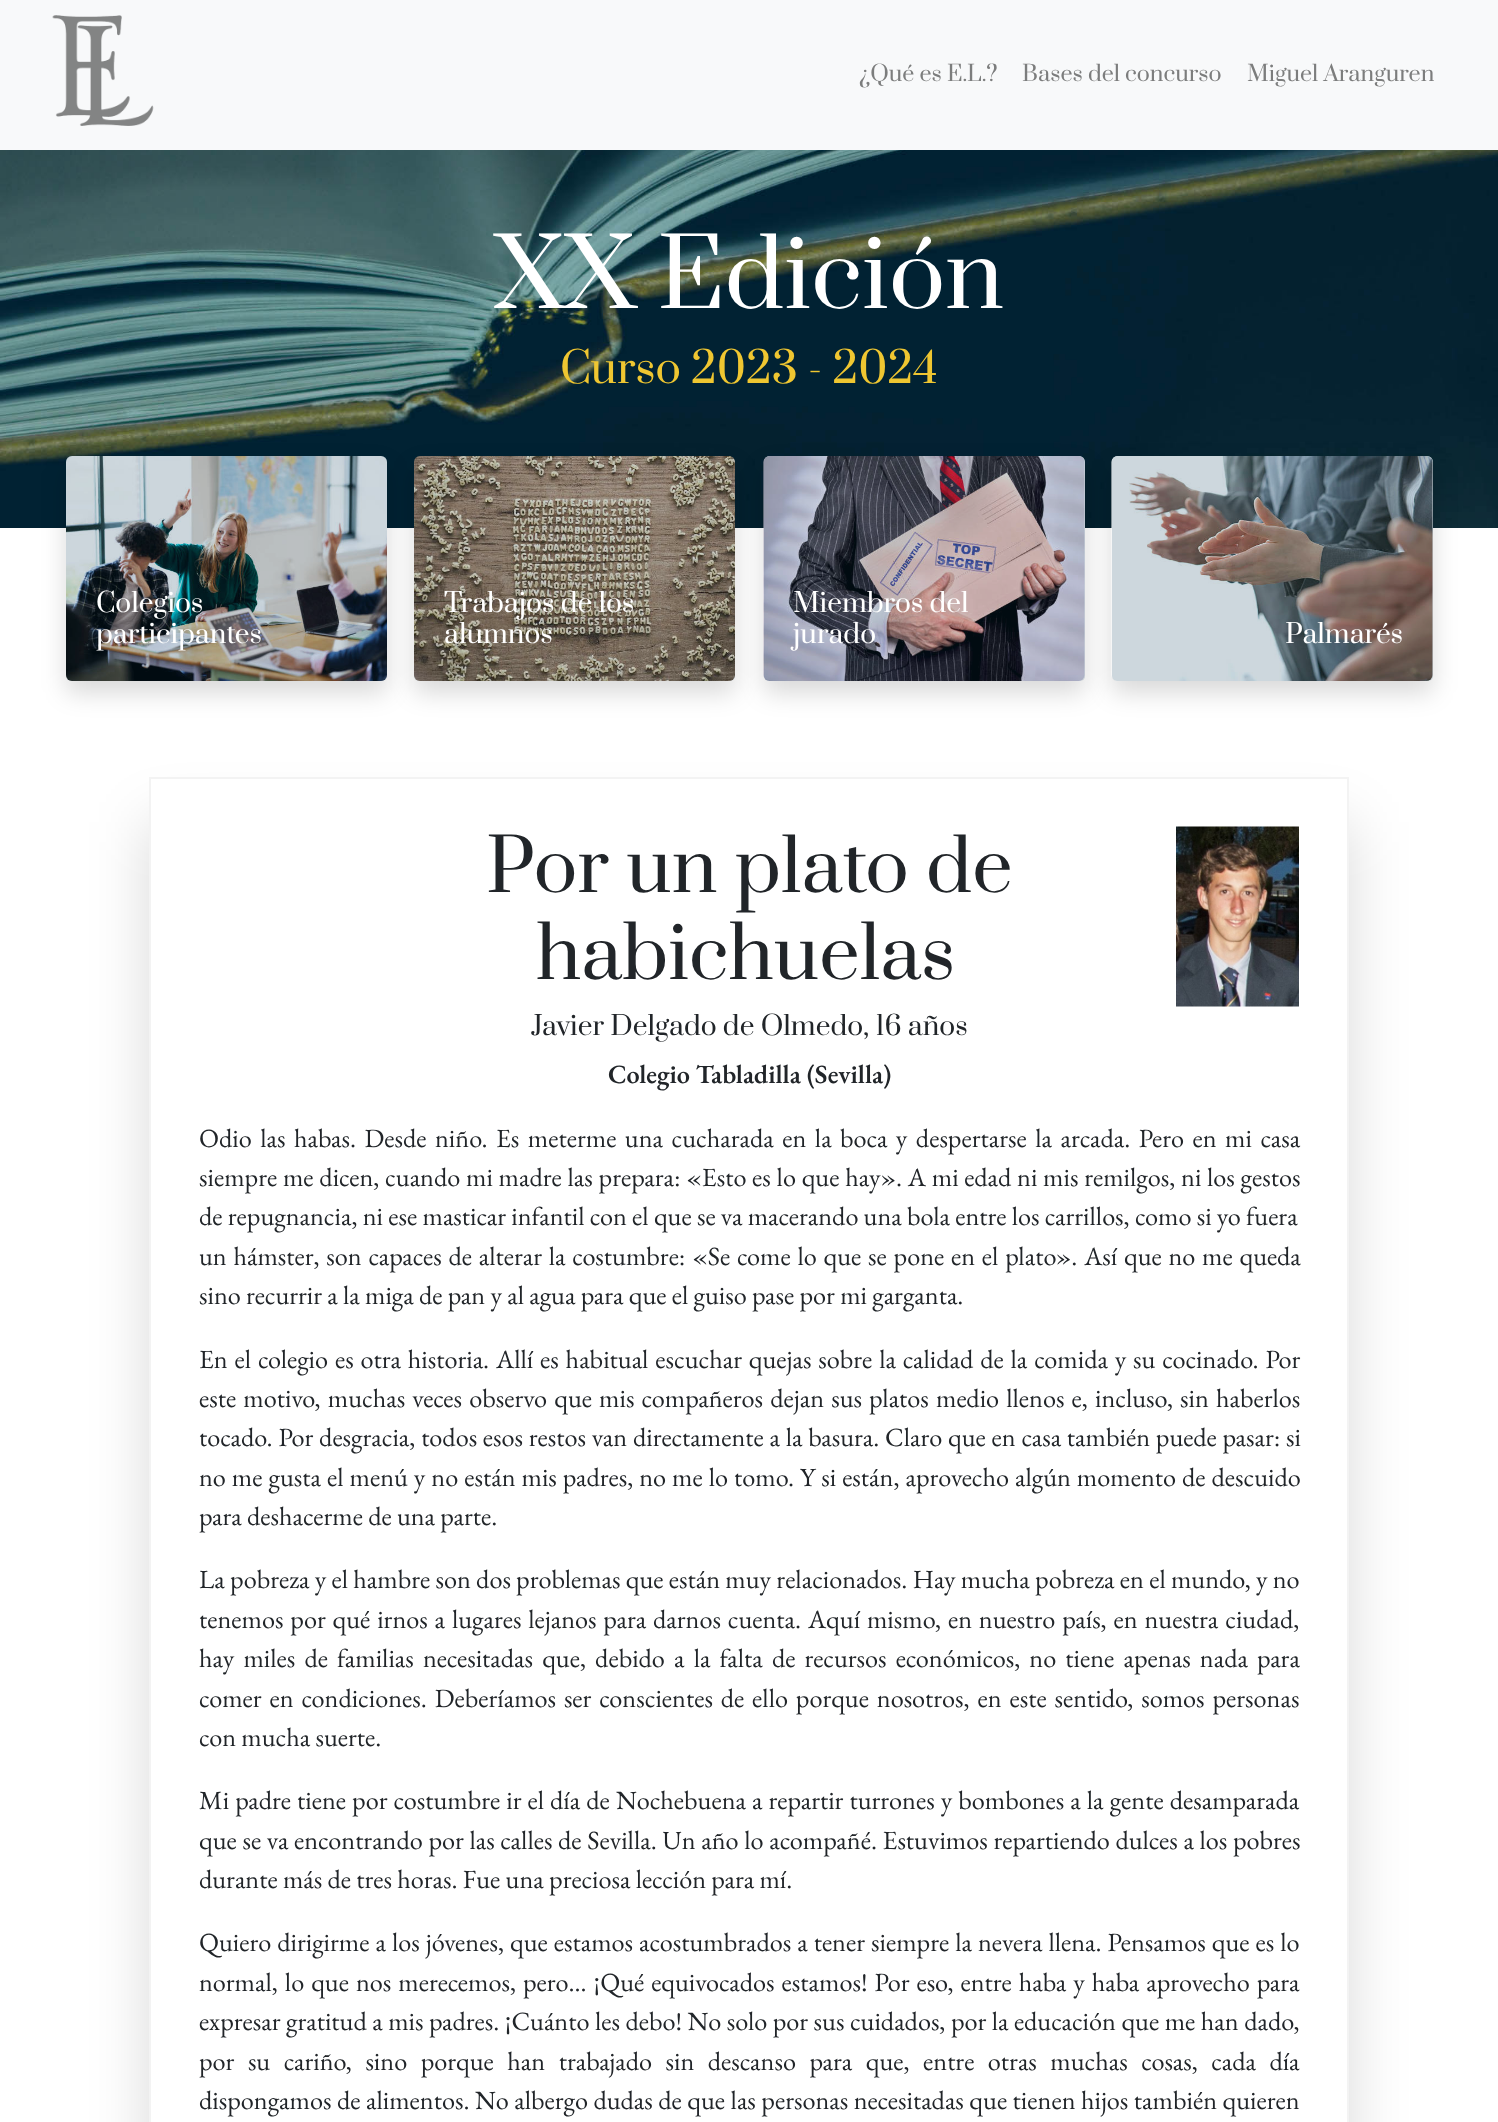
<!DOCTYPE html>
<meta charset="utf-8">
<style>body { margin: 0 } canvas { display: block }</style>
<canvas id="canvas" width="1498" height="2122"></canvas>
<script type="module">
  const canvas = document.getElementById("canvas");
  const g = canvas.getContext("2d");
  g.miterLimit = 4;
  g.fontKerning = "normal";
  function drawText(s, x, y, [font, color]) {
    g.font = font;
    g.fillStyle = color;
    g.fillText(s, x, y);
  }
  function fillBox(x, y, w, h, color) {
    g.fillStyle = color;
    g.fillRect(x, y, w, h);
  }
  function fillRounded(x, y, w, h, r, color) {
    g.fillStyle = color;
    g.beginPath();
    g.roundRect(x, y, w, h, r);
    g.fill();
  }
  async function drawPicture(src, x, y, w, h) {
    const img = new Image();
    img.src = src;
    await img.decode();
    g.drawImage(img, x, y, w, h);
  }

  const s1 = ["21.5px Prata", "#7C7D7D"];
  const s2 = ["93px Prata", "#FFFFFF"];
  const s3 = ["42px Prata", "#EFC631"];
  const s4 = ["26.25px Prata", "#FFFFFF"];
  const s5 = ["72px Prata", "#212529"];
  const s6 = ["26.25px Prata", "#212529"];
  const s7 = ["600 26.25px EB Garamond", "#212529"];
  const s8 = ["26.25px EB Garamond", "#212529"];

  fillBox(0, 0, 1498, 2122, "#FFFFFF");
  fillBox(0, 0, 1498, 150, "#F8F9FA");
  await drawPicture("pic1.png", 52, 15, 102, 111);
  drawText("¿Qué es E.L.?", 859, 81, s1);
  drawText("Bases del concurso", 1022, 81, s1);
  drawText("Miguel Aranguren", 1247, 81, s1);
  await drawPicture("pic2.png", 0, 150, 1498, 378);
  drawText("XX Edición", 494, 308, s2);
  drawText("Curso 2023 - 2024", 560, 383, s3);
  g.fillStyle = "rgba(0, 0, 0, 0.15)";
  g.filter = "blur(12px)";
  g.beginPath();
  g.roundRect(66, 468, 321, 225, 6);
  g.fill();
  g.filter = "none";
  await drawPicture("pic3.png", 66, 456, 321, 225);
  fillRounded(66, 456, 321, 225, 5, "rgba(3, 56, 84, 0.2)");
  drawText("Colegios", 96, 612, s4);
  drawText("participantes", 96, 643, s4);
  g.fillStyle = "rgba(0, 0, 0, 0.15)";
  g.filter = "blur(12px)";
  g.beginPath();
  g.roundRect(414, 468, 321, 225, 6);
  g.fill();
  g.filter = "none";
  await drawPicture("pic4.png", 414, 456, 321, 225);
  fillRounded(414, 456, 321, 225, 5, "rgba(3, 56, 84, 0.2)");
  drawText("Trabajos de los", 444, 612, s4);
  drawText("alumnos", 444, 643, s4);
  g.fillStyle = "rgba(0, 0, 0, 0.15)";
  g.filter = "blur(12px)";
  g.beginPath();
  g.roundRect(764, 468, 321, 225, 6);
  g.fill();
  g.filter = "none";
  fillRounded(764, 456, 321, 225, 6, "#FFFFFF");
  await drawPicture("pic5.png", 763, 456, 322, 225);
  fillRounded(764, 456, 321, 225, 5, "rgba(3, 56, 84, 0.2)");
  drawText("Miembros del", 793, 612, s4);
  drawText("jurado", 793, 643, s4);
  g.fillStyle = "rgba(0, 0, 0, 0.15)";
  g.filter = "blur(12px)";
  g.beginPath();
  g.roundRect(1112, 468, 321, 225, 6);
  g.fill();
  g.filter = "none";
  fillRounded(1112, 456, 321, 225, 6, "#FFFFFF");
  await drawPicture("pic6.png", 1111, 456, 322, 225);
  fillRounded(1112, 456, 321, 225, 5, "rgba(3, 56, 84, 0.2)");
  drawText("Palmarés", 1285, 643, s4);
  g.save();
  g.beginPath();
  g.moveTo(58, 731);
  g.lineTo(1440, 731);
  g.lineTo(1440, 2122);
  g.lineTo(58, 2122);
  g.closePath();
  g.moveTo(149, 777);
  g.lineTo(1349, 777);
  g.lineTo(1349, 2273);
  g.lineTo(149, 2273);
  g.closePath();
  g.clip("evenodd");
  g.fillStyle = "rgba(1, 1, 1, 0.15)";
  g.filter = "blur(30px)";
  g.beginPath();
  g.rect(149, 822, 1200, 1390);
  g.fill();
  g.filter = "none";
  g.restore();
  g.strokeStyle = "#F3F3F3";
  g.lineWidth = 2;
  g.strokeRect(150, 778, 1198, 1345);
  drawText("Por un plato de", 486, 892, s5);
  drawText("habichuelas", 536, 979, s5);
  await drawPicture("pic7.png", 1176, 826, 123, 181);
  drawText("Javier Delgado de Olmedo, 16 años", 531, 1035, s6);
  drawText("Colegio Tabladilla (Sevilla)", 608, 1083, s7);
  g.wordSpacing = "3.25px";
  drawText("Odio las habas. Desde niño. Es meterme una cucharada en la boca y despertarse la arcada. Pero en mi casa", 199, 1147, s8);
  g.wordSpacing = "0.5px";
  drawText("siempre me dicen, cuando mi madre las prepara: «Esto es lo que hay». A mi edad ni mis remilgos, ni los gestos", 199, 1186, s8);
  g.wordSpacing = "0px";
  drawText("de repugnancia, ni ese masticar infantil con el que se va macerando una bola entre los carrillos, como si yo fuera", 199, 1225, s8);
  g.wordSpacing = "1.5px";
  drawText("un hámster, son capaces de alterar la costumbre: «Se come lo que se pone en el plato». Así que no me queda", 199, 1265, s8);
  g.wordSpacing = "0px";
  drawText("sino recurrir a la miga de pan y al agua para que el guiso pase por mi garganta.", 199, 1304, s8);
  g.wordSpacing = "1.6px";
  drawText("En el colegio es otra historia. Allí es habitual escuchar quejas sobre la calidad de la comida y su cocinado. Por", 199, 1368, s8);
  g.wordSpacing = "1.9px";
  drawText("este motivo, muchas veces observo que mis compañeros dejan sus platos medio llenos e, incluso, sin haberlos", 199, 1407, s8);
  g.wordSpacing = "0.5px";
  drawText("tocado. Por desgracia, todos esos restos van directamente a la basura. Claro que en casa también puede pasar: si", 199, 1446, s8);
  g.wordSpacing = "0.75px";
  drawText("no me gusta el menú y no están mis padres, no me lo tomo. Y si están, aprovecho algún momento de descuido", 199, 1486, s8);
  g.wordSpacing = "0px";
  drawText("para deshacerme de una parte.", 199, 1525, s8);
  drawText("La pobreza y el hambre son dos problemas que están muy relacionados. Hay mucha pobreza en el mundo, y no", 199, 1588, s8);
  g.wordSpacing = "1.6px";
  drawText("tenemos por qué irnos a lugares lejanos para darnos cuenta. Aquí mismo, en nuestro país, en nuestra ciudad,", 199, 1628, s8);
  g.wordSpacing = "3.9px";
  drawText("hay miles de familias necesitadas que, debido a la falta de recursos económicos, no tiene apenas nada para", 199, 1667, s8);
  g.wordSpacing = "2.6px";
  drawText("comer en condiciones. Deberíamos ser conscientes de ello porque nosotros, en este sentido, somos personas", 199, 1707, s8);
  g.wordSpacing = "0px";
  drawText("con mucha suerte.", 199, 1746, s8);
  g.wordSpacing = "0.8px";
  drawText("Mi padre tiene por costumbre ir el día de Nochebuena a repartir turrones y bombones a la gente desamparada", 199, 1809, s8);
  g.wordSpacing = "0.4px";
  drawText("que se va encontrando por las calles de Sevilla. Un año lo acompañé. Estuvimos repartiendo dulces a los pobres", 199, 1849, s8);
  g.wordSpacing = "0px";
  drawText("durante más de tres horas. Fue una preciosa lección para mí.", 199, 1888, s8);
  g.wordSpacing = "0.75px";
  drawText("Quiero dirigirme a los jóvenes, que estamos acostumbrados a tener siempre la nevera llena. Pensamos que es lo", 199, 1951, s8);
  g.wordSpacing = "1.75px";
  drawText("normal, lo que nos merecemos, pero… ¡Qué equivocados estamos! Por eso, entre haba y haba aprovecho para", 199, 1991, s8);
  g.wordSpacing = "0.25px";
  drawText("expresar gratitud a mis padres. ¡Cuánto les debo! No solo por sus cuidados, por la educación que me han dado,", 199, 2030, s8);
  g.wordSpacing = "8.25px";
  drawText("por su cariño, sino porque han trabajado sin descanso para que, entre otras muchas cosas, cada día", 199, 2070, s8);
  g.wordSpacing = "0.25px";
  drawText("dispongamos de alimentos. No albergo dudas de que las personas necesitadas que tienen hijos también quieren", 199, 2109, s8);
</script>
